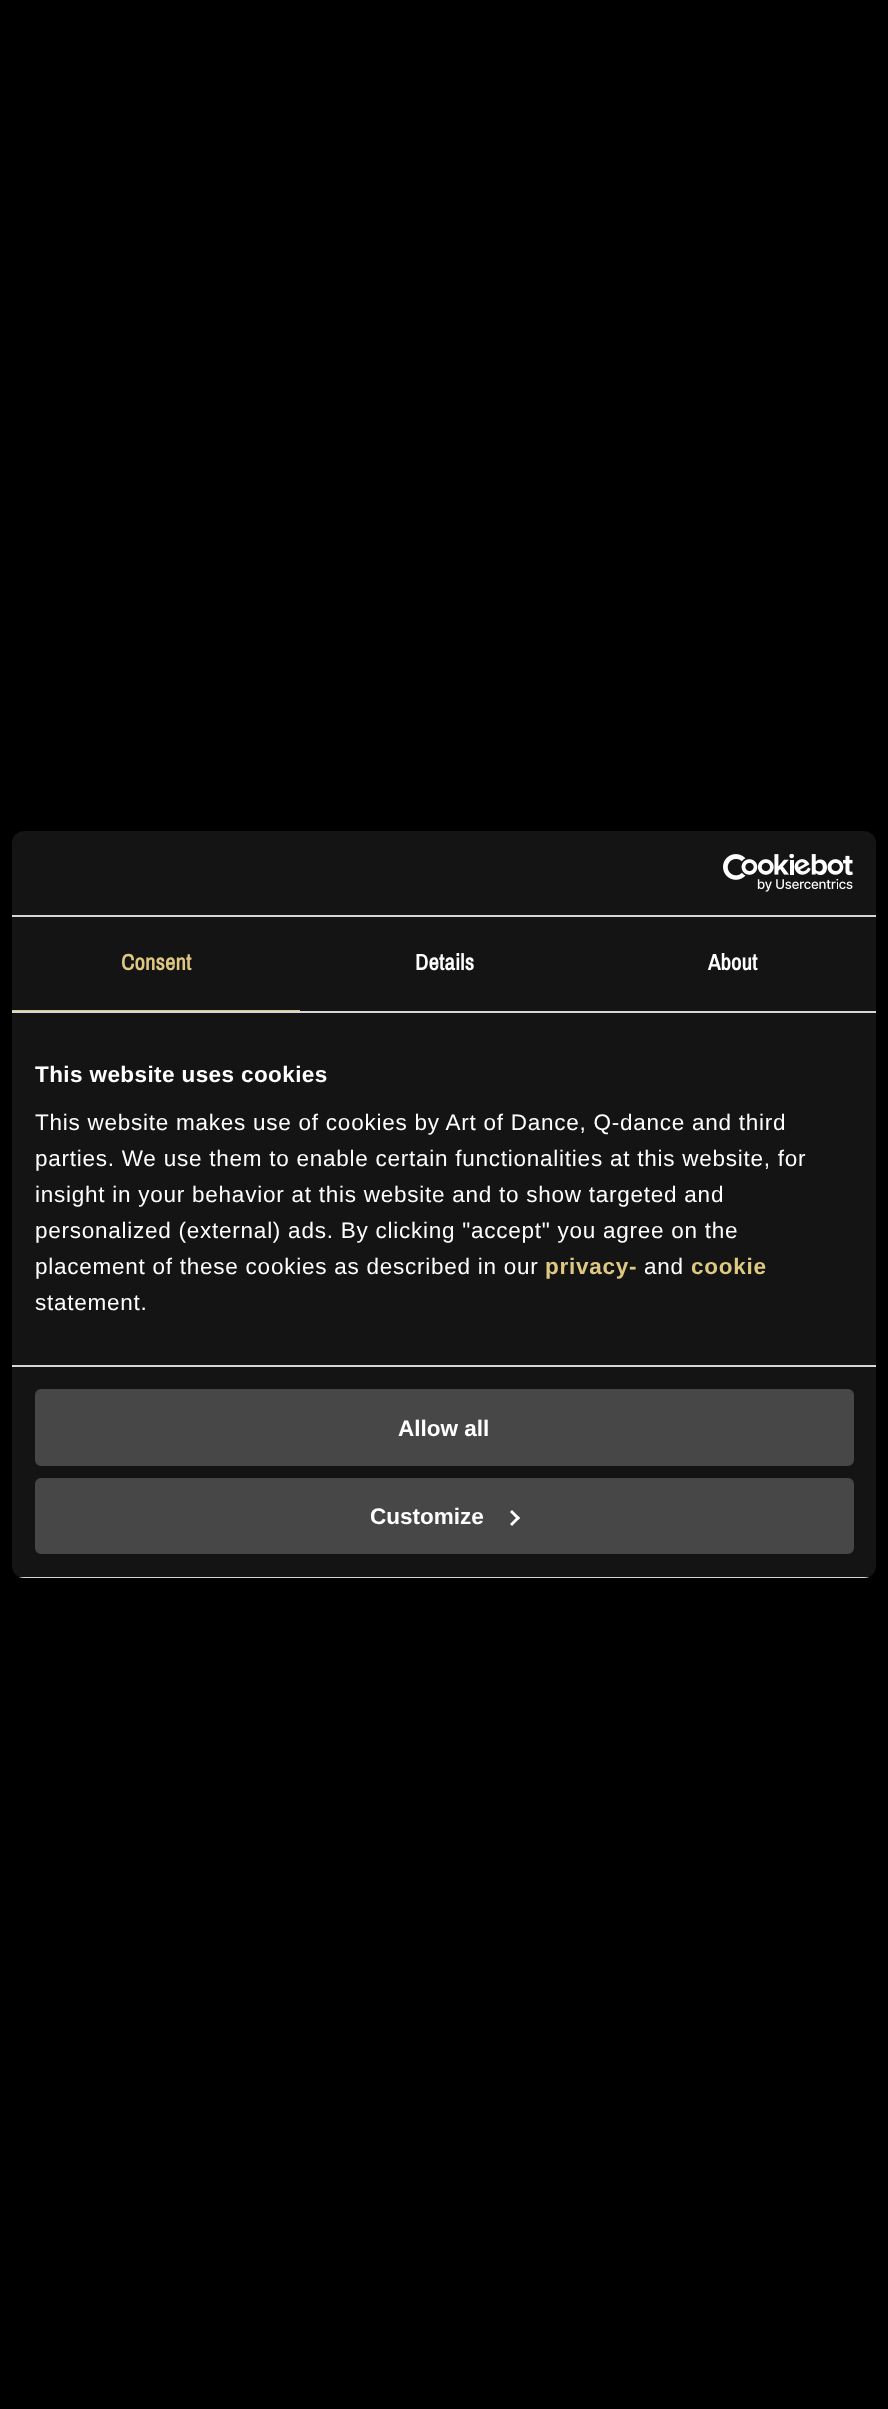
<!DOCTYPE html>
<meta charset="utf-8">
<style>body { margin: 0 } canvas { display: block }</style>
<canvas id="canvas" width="888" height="2409"></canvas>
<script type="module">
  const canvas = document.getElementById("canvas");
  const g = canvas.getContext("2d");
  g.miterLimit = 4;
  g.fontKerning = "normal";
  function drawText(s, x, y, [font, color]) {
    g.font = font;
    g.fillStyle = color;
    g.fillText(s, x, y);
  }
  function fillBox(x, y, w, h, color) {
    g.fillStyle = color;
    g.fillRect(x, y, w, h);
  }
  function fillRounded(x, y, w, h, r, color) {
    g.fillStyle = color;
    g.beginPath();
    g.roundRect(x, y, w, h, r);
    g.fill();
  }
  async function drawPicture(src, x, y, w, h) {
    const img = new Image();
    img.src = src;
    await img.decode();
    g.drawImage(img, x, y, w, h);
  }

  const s1 = ["bold 22.5px Archivo Narrow", "#DFC881"];
  const s2 = ["bold 22.5px Archivo Narrow", "#FFFFFF"];
  const s3 = ["bold 22.5px Liberation Sans", "#FFFFFF"];
  const s4 = ["22.5px Liberation Sans", "#FFFFFF"];
  const s5 = ["bold 22.5px Liberation Sans", "#DFC881"];

  fillBox(0, 0, 888, 2409, "#000000");
  fillRounded(12, 831, 864, 747, 12, "#141414");
  fillBox(12, 915, 864, 2, "#D6D6D6");
  await drawPicture("pic1.png", 723, 854, 130, 38);
  fillBox(12, 1011, 864, 2, "#D6D6D6");
  fillBox(12, 1010, 288, 1, "#DFC881");
  g.letterSpacing = "0.25px";
  drawText("Consent", 121, 970, s1);
  drawText("Details", 415, 970, s2);
  drawText("About", 708, 970, s2);
  fillBox(12, 1365, 864, 2, "#D6D6D6");
  g.letterSpacing = "0.4px";
  drawText("This website uses cookies", 35, 1082, s3);
  g.letterSpacing = "0.75px";
  drawText("This website makes use of cookies by Art of Dance, Q-dance and third", 35, 1130, s4);
  drawText("parties. We use them to enable certain functionalities at this website, for", 35, 1166, s4);
  drawText("insight in your behavior at this website and to show targeted and", 35, 1202, s4);
  drawText("personalized (external) ads. By clicking \"accept\" you agree on the", 35, 1238, s4);
  drawText("placement of these cookies as described in our", 35, 1274, s4);
  drawText("privacy-", 545, 1274, s5);
  drawText("and", 644, 1274, s4);
  drawText("cookie", 691, 1274, s5);
  drawText("statement.", 35, 1310, s4);
  g.save();
  g.beginPath();
  g.roundRect(12, 831, 864, 747, 12);
  g.clip();
  fillBox(12, 1577, 864, 1, "#D6D6D6");
  g.restore();
  g.fillStyle = "#474747";
  g.beginPath();
  g.roundRect(36.5, 1390.5, 816, 74, 4.5);
  g.fill();
  g.strokeStyle = "#474747";
  g.lineWidth = 3;
  g.stroke();
  g.letterSpacing = "0px";
  drawText("Allow all", 398, 1436, s3);
  g.fillStyle = "#474747";
  g.beginPath();
  g.roundRect(36.5, 1479.5, 816, 73, 4.5);
  g.fill();
  g.stroke();
  drawText("Customize", 370, 1524, s3);
  g.beginPath();
  g.moveTo(512, 1510);
  g.lineTo(520, 1518);
  g.lineTo(518, 1520);
  g.lineTo(510, 1512);
  g.closePath();
  g.fill();
  g.beginPath();
  g.moveTo(518, 1516);
  g.lineTo(520, 1518);
  g.lineTo(512, 1526);
  g.lineTo(510, 1524);
  g.closePath();
  g.fill();
</script>
